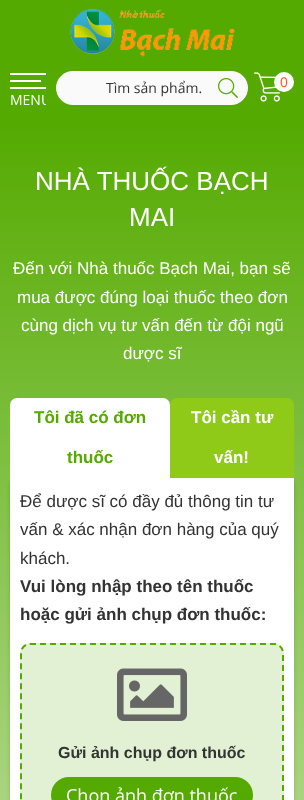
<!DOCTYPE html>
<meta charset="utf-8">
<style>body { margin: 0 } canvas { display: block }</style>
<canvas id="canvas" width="304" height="800"></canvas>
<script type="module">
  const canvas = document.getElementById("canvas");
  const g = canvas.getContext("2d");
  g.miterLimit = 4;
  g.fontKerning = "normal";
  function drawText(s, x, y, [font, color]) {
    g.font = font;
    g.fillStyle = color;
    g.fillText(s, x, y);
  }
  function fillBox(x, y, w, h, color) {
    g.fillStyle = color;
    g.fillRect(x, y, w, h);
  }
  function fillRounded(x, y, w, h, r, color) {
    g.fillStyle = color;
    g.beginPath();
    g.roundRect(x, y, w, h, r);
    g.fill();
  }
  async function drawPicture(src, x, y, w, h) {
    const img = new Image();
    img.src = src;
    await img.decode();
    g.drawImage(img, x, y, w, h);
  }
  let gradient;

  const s1 = ["14px Open Sans", "#333333"];
  const s2 = ["14px Liberation Sans", "#FF5722"];
  const s3 = ["14px Open Sans", "#FFFFFF"];
  const s4 = ["26px Liberation Sans", "#FFFFFF"];
  const s5 = ["17px Liberation Sans", "#FFFFFF"];
  const s6 = ["bold 17px Liberation Sans", "#54AA00"];
  const s7 = ["bold 17px Liberation Sans", "#FFFFFF"];
  const s8 = ["17px Liberation Sans", "#333333"];
  const s9 = ["bold 17px Liberation Sans", "#333333"];
  const s10 = ["bold 16px Liberation Sans", "#333333"];
  const s11 = ["18px Open Sans", "#FFFFFF"];

  fillBox(0, 0, 304, 800, "#54AA00");
  await drawPicture("pic1.png", 70, 8, 165, 49);
  fillRounded(56, 71, 192, 34, 17, "#FAFAFA");
  drawText("Tìm sản phẩm.", 106, 93, s1);
  await drawPicture("pic2.png", 218, 78, 20, 20);
  await drawPicture("pic3.png", 254, 72, 26, 30);
  g.fillStyle = "#FFFFFF";
  g.beginPath();
  g.arc(284, 82, 10, 0, Math.PI * 2);
  g.fill();
  drawText("0", 280, 87, s2);
  fillBox(10, 73, 36, 2, "#FFFFFF");
  fillBox(10, 87, 36, 2, "#FFFFFF");
  fillBox(10, 80, 31, 2, "#FFFFFF");
  g.save();
  g.beginPath();
  g.rect(0, 71, 46, 34);
  g.clip();
  drawText("MENU", 10, 105, s3);
  g.restore();
  gradient = g.createLinearGradient(152, 113, 152, 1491);
  gradient.addColorStop(0, "#54AA00");
  gradient.addColorStop(1, "#FFFFFF");
  g.fillStyle = gradient;
  g.fillRect(0, 127, 304, 673);
  drawText("NHÀ THUỐC BẠCH", 35, 190, s4);
  drawText("MAI", 129, 226, s4);
  drawText("Đến với Nhà thuốc Bạch Mai, bạn sẽ", 13, 274, s5);
  drawText("mua được đúng loại thuốc theo đơn", 17, 303, s5);
  drawText("cùng dịch vụ tư vấn đến từ đội ngũ", 21, 331, s5);
  drawText("dược sĩ", 123, 359, s5);
  g.fillStyle = "rgba(10, 10, 10, 0.15)";
  g.filter = "blur(2px)";
  g.beginPath();
  g.roundRect(10, 479, 284, 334, 7);
  g.fill();
  g.filter = "none";
  g.fillStyle = "#FFFFFF";
  g.beginPath();
  g.roundRect(10, 398, 160, 80, [7, 7, 0, 0]);
  g.fill();
  drawText("Tôi đã có đơn", 34, 423, s6);
  drawText("thuốc", 67, 463, s6);
  g.fillStyle = "#8FCA18";
  g.beginPath();
  g.roundRect(170, 398, 124, 80, [7, 7, 0, 0]);
  g.fill();
  drawText("Tôi cần tư", 191, 423, s7);
  drawText("vấn!", 214, 463, s7);
  fillBox(10, 478, 284, 322, "#FFFFFF");
  drawText("Để dược sĩ có đầy đủ thông tin tư", 20, 507, s8);
  drawText("vấn & xác nhận đơn hàng của quý", 20, 535, s8);
  drawText("khách.", 20, 564, s8);
  drawText("Vui lòng nhập theo tên thuốc", 20, 592, s9);
  drawText("hoặc gửi ảnh chụp đơn thuốc:", 20, 620, s9);
  fillRounded(20, 643, 264, 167, 10, "#E2F1D4");
  g.beginPath();
  g.moveTo(30, 644);
  g.lineTo(274, 644);
  g.bezierCurveTo(279, 644, 283, 648, 283, 653);
  g.lineTo(283, 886);
  g.bezierCurveTo(283, 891, 279, 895, 274, 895);
  g.lineTo(30, 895);
  g.bezierCurveTo(25, 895, 21, 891, 21, 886);
  g.lineTo(21, 653);
  g.bezierCurveTo(21, 648, 25, 644, 30, 644);
  g.closePath();
  g.strokeStyle = "#54AA00";
  g.lineWidth = 2;
  g.setLineDash([6, 4]);
  g.stroke();
  await drawPicture("pic4.png", 117, 668, 70, 53);
  drawText("Gửi ảnh chụp đơn thuốc", 58, 758, s10);
  fillRounded(51, 777, 202, 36, 18, "#54AA00");
  drawText("Chọn ảnh đơn thuốc", 66, 802, s11);
</script>
